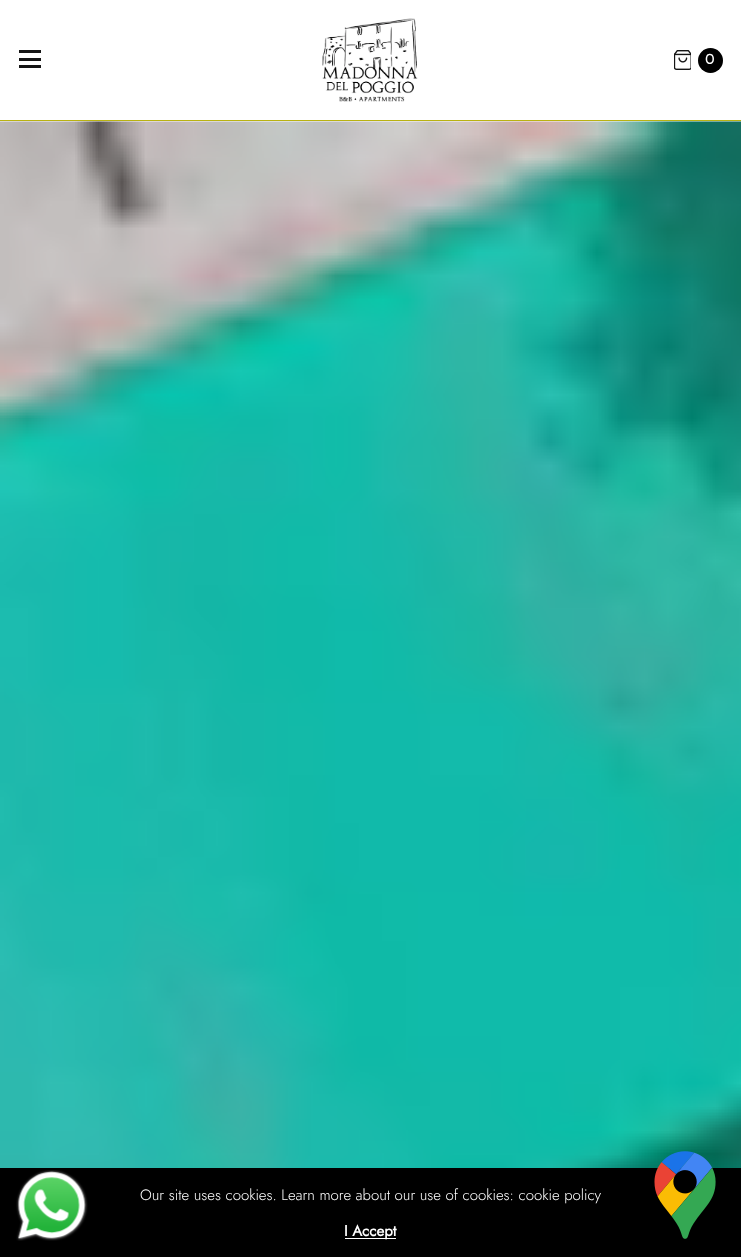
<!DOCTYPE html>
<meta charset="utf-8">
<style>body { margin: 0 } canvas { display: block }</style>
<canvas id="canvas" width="741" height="1257"></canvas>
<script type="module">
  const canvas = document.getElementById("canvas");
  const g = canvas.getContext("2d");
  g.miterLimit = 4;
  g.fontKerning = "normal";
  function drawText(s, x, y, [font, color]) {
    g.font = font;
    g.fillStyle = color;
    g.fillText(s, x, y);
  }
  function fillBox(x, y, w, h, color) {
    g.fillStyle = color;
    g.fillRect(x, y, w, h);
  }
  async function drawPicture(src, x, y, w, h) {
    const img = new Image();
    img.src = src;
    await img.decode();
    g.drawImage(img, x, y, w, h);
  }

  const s1 = ["bold 14px Montserrat", "#FFFFFF"];
  const s2 = ["300 15px Jost", "#FFFFFF"];
  const s3 = ["bold 15px Jost", "#FFFFFF"];

  fillBox(0, 0, 741, 1257, "#FFFFFF");
  fillBox(0, 120, 741, 1, "#B9B212");
  fillBox(19, 50, 22, 3, "#151515");
  fillBox(19, 58, 22, 3, "#151515");
  fillBox(19, 65, 22, 3, "#151515");
  await drawPicture("pic1.png", 322, 18, 96, 84);
  await drawPicture("pic2.png", 674, 50, 17, 20);
  g.fillStyle = "#000000";
  g.beginPath();
  g.arc(710.5, 60.5, 12.5, 0, Math.PI * 2);
  g.fill();
  drawText("0", 705, 64, s1);
  await drawPicture("pic3.png", 0, 121, 741, 1047);
  fillBox(0, 1168, 741, 89, "#000000");
  await drawPicture("pic4.png", 16, 1170, 72, 71);
  drawText("Our site uses cookies. Learn more about our use of cookies: cookie policy", 140, 1200, s2);
  fillBox(345, 1238, 51, 1, "#FFFFFF");
  drawText("I Accept", 344, 1236, s3);
  await drawPicture("pic5.png", 654, 1151, 62, 88);
</script>
